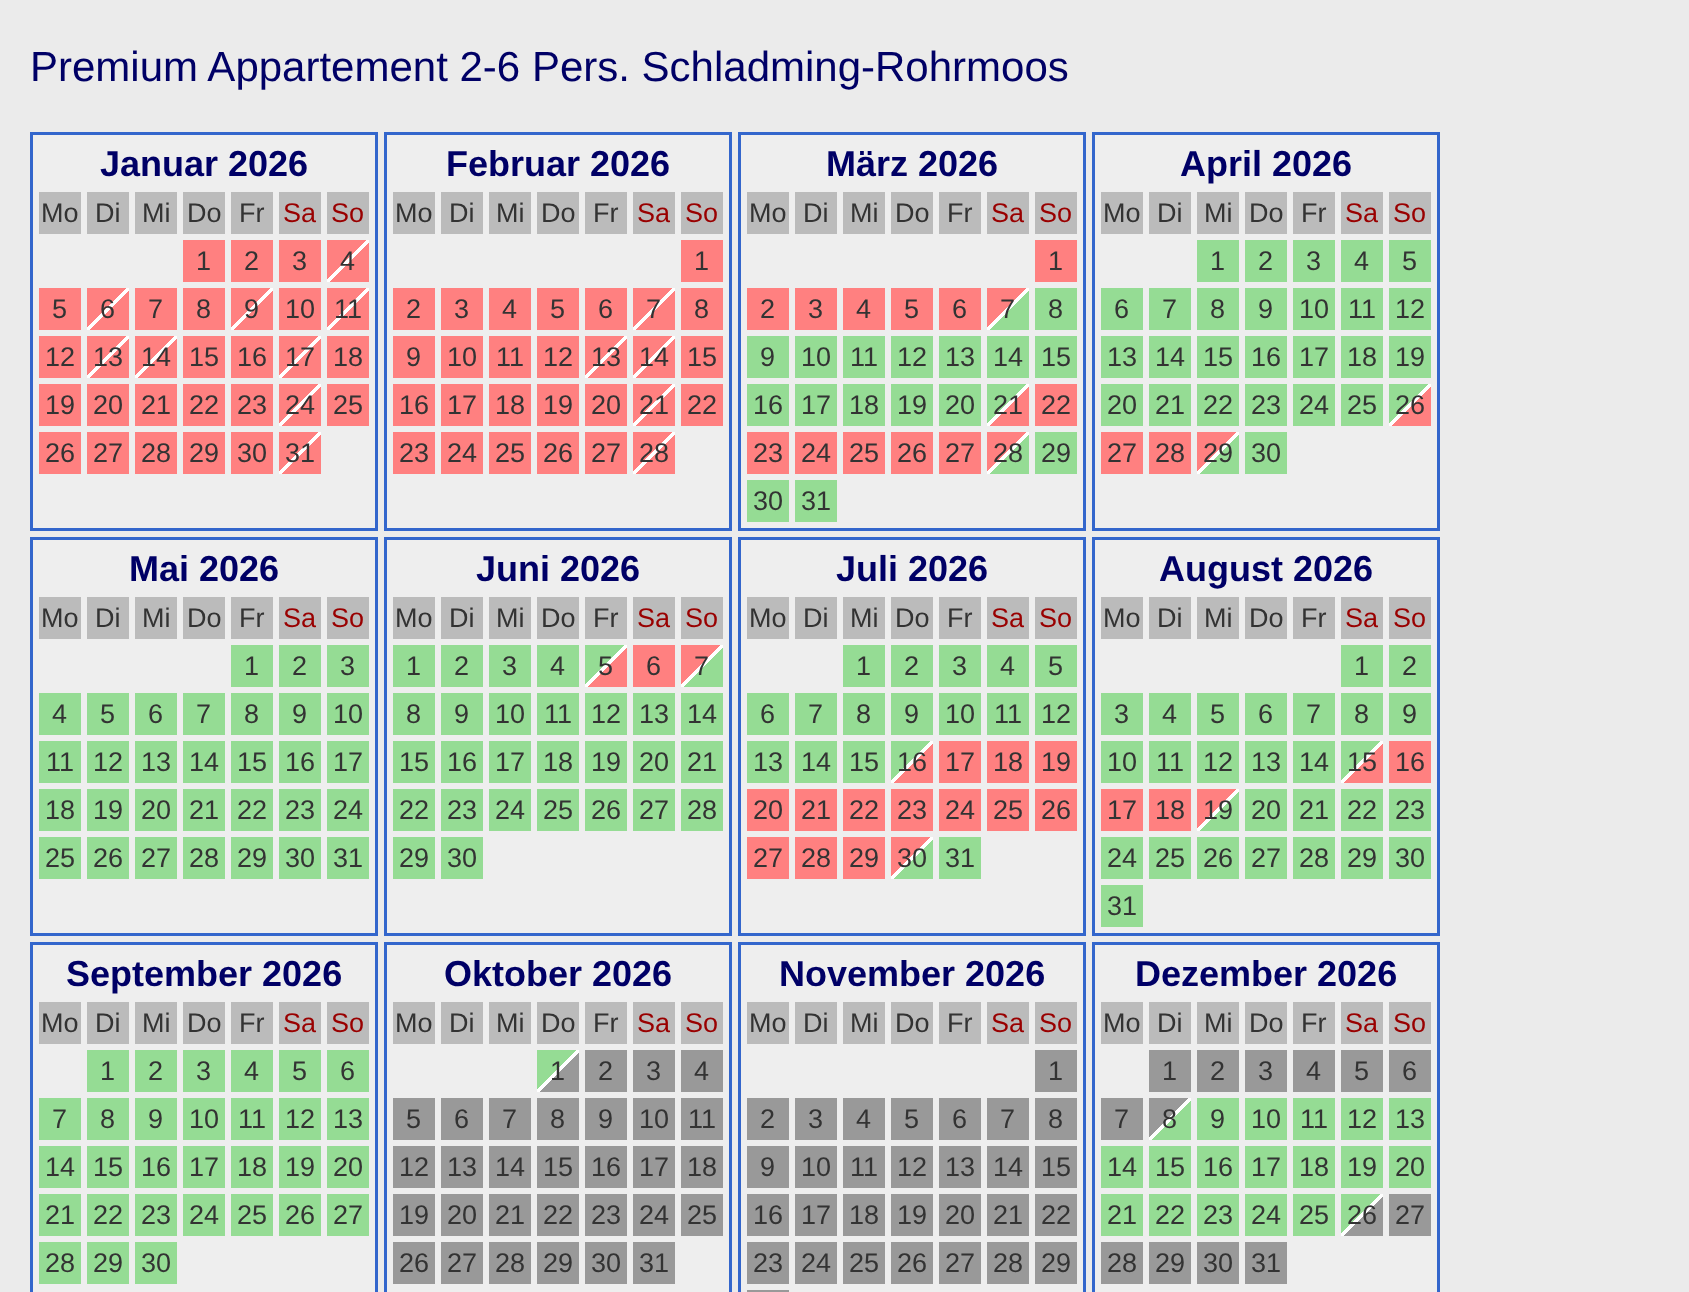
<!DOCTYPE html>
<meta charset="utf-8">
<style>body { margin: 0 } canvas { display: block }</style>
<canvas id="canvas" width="1689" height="1292"></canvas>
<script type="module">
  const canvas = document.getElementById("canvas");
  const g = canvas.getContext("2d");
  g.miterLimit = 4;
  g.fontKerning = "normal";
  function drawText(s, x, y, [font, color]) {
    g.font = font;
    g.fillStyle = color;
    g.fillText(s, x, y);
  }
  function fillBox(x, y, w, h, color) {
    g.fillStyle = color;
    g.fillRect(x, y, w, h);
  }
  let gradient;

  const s1 = ["42px Liberation Sans", "#000066"];
  const s2 = ["bold 36px Liberation Sans", "#000066"];
  const s3 = ["27px Liberation Sans", "#333333"];
  const s4 = ["27px Liberation Sans", "#990000"];

  fillBox(0, 0, 1689, 1292, "#EBEBEB");
  drawText("Premium Appartement 2-6 Pers. Schladming-Rohrmoos", 30, 81, s1);
  g.fillStyle = "#EEEEEE";
  g.beginPath();
  g.rect(31.5, 133.5, 345, 396);
  g.fill();
  g.strokeStyle = "#3366CC";
  g.lineWidth = 3;
  g.stroke();
  drawText("Januar 2026", 100, 176, s2);
  fillBox(39, 192, 42, 42, "#BBBBBB");
  drawText("Mo", 41, 222, s3);
  fillBox(87, 192, 42, 42, "#BBBBBB");
  drawText("Di", 95, 222, s3);
  fillBox(135, 192, 42, 42, "#BBBBBB");
  drawText("Mi", 142, 222, s3);
  fillBox(183, 192, 42, 42, "#BBBBBB");
  drawText("Do", 187, 222, s3);
  fillBox(231, 192, 42, 42, "#BBBBBB");
  drawText("Fr", 239, 222, s3);
  fillBox(279, 192, 42, 42, "#BBBBBB");
  drawText("Sa", 283, 222, s4);
  fillBox(327, 192, 42, 42, "#BBBBBB");
  drawText("So", 331, 222, s4);
  fillBox(183, 240, 42, 42, "#FF8080");
  drawText("1", 196, 270, s3);
  fillBox(231, 240, 42, 42, "#FF8080");
  drawText("2", 244, 270, s3);
  fillBox(279, 240, 42, 42, "#FF8080");
  drawText("3", 292, 270, s3);
  gradient = g.createLinearGradient(327, 240, 369, 282);
  gradient.addColorStop(0.47, "#FF8080");
  gradient.addColorStop(0.47, "#FFFFFF");
  gradient.addColorStop(0.53, "#FFFFFF");
  gradient.addColorStop(0.53, "#FF8080");
  g.fillStyle = gradient;
  g.fillRect(327, 240, 42, 42);
  drawText("4", 340, 270, s3);
  fillBox(39, 288, 42, 42, "#FF8080");
  drawText("5", 52, 318, s3);
  gradient = g.createLinearGradient(87, 288, 129, 330);
  gradient.addColorStop(0.47, "#FF8080");
  gradient.addColorStop(0.47, "#FFFFFF");
  gradient.addColorStop(0.53, "#FFFFFF");
  gradient.addColorStop(0.53, "#FF8080");
  g.fillStyle = gradient;
  g.fillRect(87, 288, 42, 42);
  drawText("6", 100, 318, s3);
  fillBox(135, 288, 42, 42, "#FF8080");
  drawText("7", 148, 318, s3);
  fillBox(183, 288, 42, 42, "#FF8080");
  drawText("8", 196, 318, s3);
  gradient = g.createLinearGradient(231, 288, 273, 330);
  gradient.addColorStop(0.47, "#FF8080");
  gradient.addColorStop(0.47, "#FFFFFF");
  gradient.addColorStop(0.53, "#FFFFFF");
  gradient.addColorStop(0.53, "#FF8080");
  g.fillStyle = gradient;
  g.fillRect(231, 288, 42, 42);
  drawText("9", 244, 318, s3);
  fillBox(279, 288, 42, 42, "#FF8080");
  drawText("10", 285, 318, s3);
  gradient = g.createLinearGradient(327, 288, 369, 330);
  gradient.addColorStop(0.47, "#FF8080");
  gradient.addColorStop(0.47, "#FFFFFF");
  gradient.addColorStop(0.53, "#FFFFFF");
  gradient.addColorStop(0.53, "#FF8080");
  g.fillStyle = gradient;
  g.fillRect(327, 288, 42, 42);
  drawText("11", 334, 318, s3);
  fillBox(39, 336, 42, 42, "#FF8080");
  drawText("12", 45, 366, s3);
  gradient = g.createLinearGradient(87, 336, 129, 378);
  gradient.addColorStop(0.47, "#FF8080");
  gradient.addColorStop(0.47, "#FFFFFF");
  gradient.addColorStop(0.53, "#FFFFFF");
  gradient.addColorStop(0.53, "#FF8080");
  g.fillStyle = gradient;
  g.fillRect(87, 336, 42, 42);
  drawText("13", 93, 366, s3);
  gradient = g.createLinearGradient(135, 336, 177, 378);
  gradient.addColorStop(0.47, "#FF8080");
  gradient.addColorStop(0.47, "#FFFFFF");
  gradient.addColorStop(0.53, "#FFFFFF");
  gradient.addColorStop(0.53, "#FF8080");
  g.fillStyle = gradient;
  g.fillRect(135, 336, 42, 42);
  drawText("14", 141, 366, s3);
  fillBox(183, 336, 42, 42, "#FF8080");
  drawText("15", 189, 366, s3);
  fillBox(231, 336, 42, 42, "#FF8080");
  drawText("16", 237, 366, s3);
  gradient = g.createLinearGradient(279, 336, 321, 378);
  gradient.addColorStop(0.47, "#FF8080");
  gradient.addColorStop(0.47, "#FFFFFF");
  gradient.addColorStop(0.53, "#FFFFFF");
  gradient.addColorStop(0.53, "#FF8080");
  g.fillStyle = gradient;
  g.fillRect(279, 336, 42, 42);
  drawText("17", 285, 366, s3);
  fillBox(327, 336, 42, 42, "#FF8080");
  drawText("18", 333, 366, s3);
  fillBox(39, 384, 42, 42, "#FF8080");
  drawText("19", 45, 414, s3);
  fillBox(87, 384, 42, 42, "#FF8080");
  drawText("20", 93, 414, s3);
  fillBox(135, 384, 42, 42, "#FF8080");
  drawText("21", 141, 414, s3);
  fillBox(183, 384, 42, 42, "#FF8080");
  drawText("22", 189, 414, s3);
  fillBox(231, 384, 42, 42, "#FF8080");
  drawText("23", 237, 414, s3);
  gradient = g.createLinearGradient(279, 384, 321, 426);
  gradient.addColorStop(0.47, "#FF8080");
  gradient.addColorStop(0.47, "#FFFFFF");
  gradient.addColorStop(0.53, "#FFFFFF");
  gradient.addColorStop(0.53, "#FF8080");
  g.fillStyle = gradient;
  g.fillRect(279, 384, 42, 42);
  drawText("24", 285, 414, s3);
  fillBox(327, 384, 42, 42, "#FF8080");
  drawText("25", 333, 414, s3);
  fillBox(39, 432, 42, 42, "#FF8080");
  drawText("26", 45, 462, s3);
  fillBox(87, 432, 42, 42, "#FF8080");
  drawText("27", 93, 462, s3);
  fillBox(135, 432, 42, 42, "#FF8080");
  drawText("28", 141, 462, s3);
  fillBox(183, 432, 42, 42, "#FF8080");
  drawText("29", 189, 462, s3);
  fillBox(231, 432, 42, 42, "#FF8080");
  drawText("30", 237, 462, s3);
  gradient = g.createLinearGradient(279, 432, 321, 474);
  gradient.addColorStop(0.47, "#FF8080");
  gradient.addColorStop(0.47, "#FFFFFF");
  gradient.addColorStop(0.53, "#FFFFFF");
  gradient.addColorStop(0.53, "#FF8080");
  g.fillStyle = gradient;
  g.fillRect(279, 432, 42, 42);
  drawText("31", 285, 462, s3);
  g.fillStyle = "#EEEEEE";
  g.beginPath();
  g.rect(385.5, 133.5, 345, 396);
  g.fill();
  g.stroke();
  drawText("Februar 2026", 446, 176, s2);
  fillBox(393, 192, 42, 42, "#BBBBBB");
  drawText("Mo", 395, 222, s3);
  fillBox(441, 192, 42, 42, "#BBBBBB");
  drawText("Di", 449, 222, s3);
  fillBox(489, 192, 42, 42, "#BBBBBB");
  drawText("Mi", 496, 222, s3);
  fillBox(537, 192, 42, 42, "#BBBBBB");
  drawText("Do", 541, 222, s3);
  fillBox(585, 192, 42, 42, "#BBBBBB");
  drawText("Fr", 593, 222, s3);
  fillBox(633, 192, 42, 42, "#BBBBBB");
  drawText("Sa", 637, 222, s4);
  fillBox(681, 192, 42, 42, "#BBBBBB");
  drawText("So", 685, 222, s4);
  fillBox(681, 240, 42, 42, "#FF8080");
  drawText("1", 694, 270, s3);
  fillBox(393, 288, 42, 42, "#FF8080");
  drawText("2", 406, 318, s3);
  fillBox(441, 288, 42, 42, "#FF8080");
  drawText("3", 454, 318, s3);
  fillBox(489, 288, 42, 42, "#FF8080");
  drawText("4", 502, 318, s3);
  fillBox(537, 288, 42, 42, "#FF8080");
  drawText("5", 550, 318, s3);
  fillBox(585, 288, 42, 42, "#FF8080");
  drawText("6", 598, 318, s3);
  gradient = g.createLinearGradient(633, 288, 675, 330);
  gradient.addColorStop(0.47, "#FF8080");
  gradient.addColorStop(0.47, "#FFFFFF");
  gradient.addColorStop(0.53, "#FFFFFF");
  gradient.addColorStop(0.53, "#FF8080");
  g.fillStyle = gradient;
  g.fillRect(633, 288, 42, 42);
  drawText("7", 646, 318, s3);
  fillBox(681, 288, 42, 42, "#FF8080");
  drawText("8", 694, 318, s3);
  fillBox(393, 336, 42, 42, "#FF8080");
  drawText("9", 406, 366, s3);
  fillBox(441, 336, 42, 42, "#FF8080");
  drawText("10", 447, 366, s3);
  fillBox(489, 336, 42, 42, "#FF8080");
  drawText("11", 496, 366, s3);
  fillBox(537, 336, 42, 42, "#FF8080");
  drawText("12", 543, 366, s3);
  gradient = g.createLinearGradient(585, 336, 627, 378);
  gradient.addColorStop(0.47, "#FF8080");
  gradient.addColorStop(0.47, "#FFFFFF");
  gradient.addColorStop(0.53, "#FFFFFF");
  gradient.addColorStop(0.53, "#FF8080");
  g.fillStyle = gradient;
  g.fillRect(585, 336, 42, 42);
  drawText("13", 591, 366, s3);
  gradient = g.createLinearGradient(633, 336, 675, 378);
  gradient.addColorStop(0.47, "#FF8080");
  gradient.addColorStop(0.47, "#FFFFFF");
  gradient.addColorStop(0.53, "#FFFFFF");
  gradient.addColorStop(0.53, "#FF8080");
  g.fillStyle = gradient;
  g.fillRect(633, 336, 42, 42);
  drawText("14", 639, 366, s3);
  fillBox(681, 336, 42, 42, "#FF8080");
  drawText("15", 687, 366, s3);
  fillBox(393, 384, 42, 42, "#FF8080");
  drawText("16", 399, 414, s3);
  fillBox(441, 384, 42, 42, "#FF8080");
  drawText("17", 447, 414, s3);
  fillBox(489, 384, 42, 42, "#FF8080");
  drawText("18", 495, 414, s3);
  fillBox(537, 384, 42, 42, "#FF8080");
  drawText("19", 543, 414, s3);
  fillBox(585, 384, 42, 42, "#FF8080");
  drawText("20", 591, 414, s3);
  gradient = g.createLinearGradient(633, 384, 675, 426);
  gradient.addColorStop(0.47, "#FF8080");
  gradient.addColorStop(0.47, "#FFFFFF");
  gradient.addColorStop(0.53, "#FFFFFF");
  gradient.addColorStop(0.53, "#FF8080");
  g.fillStyle = gradient;
  g.fillRect(633, 384, 42, 42);
  drawText("21", 639, 414, s3);
  fillBox(681, 384, 42, 42, "#FF8080");
  drawText("22", 687, 414, s3);
  fillBox(393, 432, 42, 42, "#FF8080");
  drawText("23", 399, 462, s3);
  fillBox(441, 432, 42, 42, "#FF8080");
  drawText("24", 447, 462, s3);
  fillBox(489, 432, 42, 42, "#FF8080");
  drawText("25", 495, 462, s3);
  fillBox(537, 432, 42, 42, "#FF8080");
  drawText("26", 543, 462, s3);
  fillBox(585, 432, 42, 42, "#FF8080");
  drawText("27", 591, 462, s3);
  gradient = g.createLinearGradient(633, 432, 675, 474);
  gradient.addColorStop(0.47, "#FF8080");
  gradient.addColorStop(0.47, "#FFFFFF");
  gradient.addColorStop(0.53, "#FFFFFF");
  gradient.addColorStop(0.53, "#FF8080");
  g.fillStyle = gradient;
  g.fillRect(633, 432, 42, 42);
  drawText("28", 639, 462, s3);
  g.fillStyle = "#EEEEEE";
  g.beginPath();
  g.rect(739.5, 133.5, 345, 396);
  g.fill();
  g.stroke();
  drawText("März 2026", 826, 176, s2);
  fillBox(747, 192, 42, 42, "#BBBBBB");
  drawText("Mo", 749, 222, s3);
  fillBox(795, 192, 42, 42, "#BBBBBB");
  drawText("Di", 803, 222, s3);
  fillBox(843, 192, 42, 42, "#BBBBBB");
  drawText("Mi", 850, 222, s3);
  fillBox(891, 192, 42, 42, "#BBBBBB");
  drawText("Do", 895, 222, s3);
  fillBox(939, 192, 42, 42, "#BBBBBB");
  drawText("Fr", 947, 222, s3);
  fillBox(987, 192, 42, 42, "#BBBBBB");
  drawText("Sa", 991, 222, s4);
  fillBox(1035, 192, 42, 42, "#BBBBBB");
  drawText("So", 1039, 222, s4);
  fillBox(1035, 240, 42, 42, "#FF8080");
  drawText("1", 1048, 270, s3);
  fillBox(747, 288, 42, 42, "#FF8080");
  drawText("2", 760, 318, s3);
  fillBox(795, 288, 42, 42, "#FF8080");
  drawText("3", 808, 318, s3);
  fillBox(843, 288, 42, 42, "#FF8080");
  drawText("4", 856, 318, s3);
  fillBox(891, 288, 42, 42, "#FF8080");
  drawText("5", 904, 318, s3);
  fillBox(939, 288, 42, 42, "#FF8080");
  drawText("6", 952, 318, s3);
  gradient = g.createLinearGradient(987, 288, 1029, 330);
  gradient.addColorStop(0.47, "#FF8080");
  gradient.addColorStop(0.47, "#FFFFFF");
  gradient.addColorStop(0.53, "#FFFFFF");
  gradient.addColorStop(0.53, "#95DC94");
  g.fillStyle = gradient;
  g.fillRect(987, 288, 42, 42);
  drawText("7", 1000, 318, s3);
  fillBox(1035, 288, 42, 42, "#95DC94");
  drawText("8", 1048, 318, s3);
  fillBox(747, 336, 42, 42, "#95DC94");
  drawText("9", 760, 366, s3);
  fillBox(795, 336, 42, 42, "#95DC94");
  drawText("10", 801, 366, s3);
  fillBox(843, 336, 42, 42, "#95DC94");
  drawText("11", 850, 366, s3);
  fillBox(891, 336, 42, 42, "#95DC94");
  drawText("12", 897, 366, s3);
  fillBox(939, 336, 42, 42, "#95DC94");
  drawText("13", 945, 366, s3);
  fillBox(987, 336, 42, 42, "#95DC94");
  drawText("14", 993, 366, s3);
  fillBox(1035, 336, 42, 42, "#95DC94");
  drawText("15", 1041, 366, s3);
  fillBox(747, 384, 42, 42, "#95DC94");
  drawText("16", 753, 414, s3);
  fillBox(795, 384, 42, 42, "#95DC94");
  drawText("17", 801, 414, s3);
  fillBox(843, 384, 42, 42, "#95DC94");
  drawText("18", 849, 414, s3);
  fillBox(891, 384, 42, 42, "#95DC94");
  drawText("19", 897, 414, s3);
  fillBox(939, 384, 42, 42, "#95DC94");
  drawText("20", 945, 414, s3);
  gradient = g.createLinearGradient(987, 384, 1029, 426);
  gradient.addColorStop(0.47, "#95DC94");
  gradient.addColorStop(0.47, "#FFFFFF");
  gradient.addColorStop(0.53, "#FFFFFF");
  gradient.addColorStop(0.53, "#FF8080");
  g.fillStyle = gradient;
  g.fillRect(987, 384, 42, 42);
  drawText("21", 993, 414, s3);
  fillBox(1035, 384, 42, 42, "#FF8080");
  drawText("22", 1041, 414, s3);
  fillBox(747, 432, 42, 42, "#FF8080");
  drawText("23", 753, 462, s3);
  fillBox(795, 432, 42, 42, "#FF8080");
  drawText("24", 801, 462, s3);
  fillBox(843, 432, 42, 42, "#FF8080");
  drawText("25", 849, 462, s3);
  fillBox(891, 432, 42, 42, "#FF8080");
  drawText("26", 897, 462, s3);
  fillBox(939, 432, 42, 42, "#FF8080");
  drawText("27", 945, 462, s3);
  gradient = g.createLinearGradient(987, 432, 1029, 474);
  gradient.addColorStop(0.47, "#FF8080");
  gradient.addColorStop(0.47, "#FFFFFF");
  gradient.addColorStop(0.53, "#FFFFFF");
  gradient.addColorStop(0.53, "#95DC94");
  g.fillStyle = gradient;
  g.fillRect(987, 432, 42, 42);
  drawText("28", 993, 462, s3);
  fillBox(1035, 432, 42, 42, "#95DC94");
  drawText("29", 1041, 462, s3);
  fillBox(747, 480, 42, 42, "#95DC94");
  drawText("30", 753, 510, s3);
  fillBox(795, 480, 42, 42, "#95DC94");
  drawText("31", 801, 510, s3);
  g.fillStyle = "#EEEEEE";
  g.beginPath();
  g.rect(1093.5, 133.5, 345, 396);
  g.fill();
  g.stroke();
  drawText("April 2026", 1180, 176, s2);
  fillBox(1101, 192, 42, 42, "#BBBBBB");
  drawText("Mo", 1103, 222, s3);
  fillBox(1149, 192, 42, 42, "#BBBBBB");
  drawText("Di", 1157, 222, s3);
  fillBox(1197, 192, 42, 42, "#BBBBBB");
  drawText("Mi", 1204, 222, s3);
  fillBox(1245, 192, 42, 42, "#BBBBBB");
  drawText("Do", 1249, 222, s3);
  fillBox(1293, 192, 42, 42, "#BBBBBB");
  drawText("Fr", 1301, 222, s3);
  fillBox(1341, 192, 42, 42, "#BBBBBB");
  drawText("Sa", 1345, 222, s4);
  fillBox(1389, 192, 42, 42, "#BBBBBB");
  drawText("So", 1393, 222, s4);
  fillBox(1197, 240, 42, 42, "#95DC94");
  drawText("1", 1210, 270, s3);
  fillBox(1245, 240, 42, 42, "#95DC94");
  drawText("2", 1258, 270, s3);
  fillBox(1293, 240, 42, 42, "#95DC94");
  drawText("3", 1306, 270, s3);
  fillBox(1341, 240, 42, 42, "#95DC94");
  drawText("4", 1354, 270, s3);
  fillBox(1389, 240, 42, 42, "#95DC94");
  drawText("5", 1402, 270, s3);
  fillBox(1101, 288, 42, 42, "#95DC94");
  drawText("6", 1114, 318, s3);
  fillBox(1149, 288, 42, 42, "#95DC94");
  drawText("7", 1162, 318, s3);
  fillBox(1197, 288, 42, 42, "#95DC94");
  drawText("8", 1210, 318, s3);
  fillBox(1245, 288, 42, 42, "#95DC94");
  drawText("9", 1258, 318, s3);
  fillBox(1293, 288, 42, 42, "#95DC94");
  drawText("10", 1299, 318, s3);
  fillBox(1341, 288, 42, 42, "#95DC94");
  drawText("11", 1348, 318, s3);
  fillBox(1389, 288, 42, 42, "#95DC94");
  drawText("12", 1395, 318, s3);
  fillBox(1101, 336, 42, 42, "#95DC94");
  drawText("13", 1107, 366, s3);
  fillBox(1149, 336, 42, 42, "#95DC94");
  drawText("14", 1155, 366, s3);
  fillBox(1197, 336, 42, 42, "#95DC94");
  drawText("15", 1203, 366, s3);
  fillBox(1245, 336, 42, 42, "#95DC94");
  drawText("16", 1251, 366, s3);
  fillBox(1293, 336, 42, 42, "#95DC94");
  drawText("17", 1299, 366, s3);
  fillBox(1341, 336, 42, 42, "#95DC94");
  drawText("18", 1347, 366, s3);
  fillBox(1389, 336, 42, 42, "#95DC94");
  drawText("19", 1395, 366, s3);
  fillBox(1101, 384, 42, 42, "#95DC94");
  drawText("20", 1107, 414, s3);
  fillBox(1149, 384, 42, 42, "#95DC94");
  drawText("21", 1155, 414, s3);
  fillBox(1197, 384, 42, 42, "#95DC94");
  drawText("22", 1203, 414, s3);
  fillBox(1245, 384, 42, 42, "#95DC94");
  drawText("23", 1251, 414, s3);
  fillBox(1293, 384, 42, 42, "#95DC94");
  drawText("24", 1299, 414, s3);
  fillBox(1341, 384, 42, 42, "#95DC94");
  drawText("25", 1347, 414, s3);
  gradient = g.createLinearGradient(1389, 384, 1431, 426);
  gradient.addColorStop(0.47, "#95DC94");
  gradient.addColorStop(0.47, "#FFFFFF");
  gradient.addColorStop(0.53, "#FFFFFF");
  gradient.addColorStop(0.53, "#FF8080");
  g.fillStyle = gradient;
  g.fillRect(1389, 384, 42, 42);
  drawText("26", 1395, 414, s3);
  fillBox(1101, 432, 42, 42, "#FF8080");
  drawText("27", 1107, 462, s3);
  fillBox(1149, 432, 42, 42, "#FF8080");
  drawText("28", 1155, 462, s3);
  gradient = g.createLinearGradient(1197, 432, 1239, 474);
  gradient.addColorStop(0.47, "#FF8080");
  gradient.addColorStop(0.47, "#FFFFFF");
  gradient.addColorStop(0.53, "#FFFFFF");
  gradient.addColorStop(0.53, "#95DC94");
  g.fillStyle = gradient;
  g.fillRect(1197, 432, 42, 42);
  drawText("29", 1203, 462, s3);
  fillBox(1245, 432, 42, 42, "#95DC94");
  drawText("30", 1251, 462, s3);
  g.fillStyle = "#EEEEEE";
  g.beginPath();
  g.rect(31.5, 538.5, 345, 396);
  g.fill();
  g.stroke();
  drawText("Mai 2026", 129, 581, s2);
  fillBox(39, 597, 42, 42, "#BBBBBB");
  drawText("Mo", 41, 627, s3);
  fillBox(87, 597, 42, 42, "#BBBBBB");
  drawText("Di", 95, 627, s3);
  fillBox(135, 597, 42, 42, "#BBBBBB");
  drawText("Mi", 142, 627, s3);
  fillBox(183, 597, 42, 42, "#BBBBBB");
  drawText("Do", 187, 627, s3);
  fillBox(231, 597, 42, 42, "#BBBBBB");
  drawText("Fr", 239, 627, s3);
  fillBox(279, 597, 42, 42, "#BBBBBB");
  drawText("Sa", 283, 627, s4);
  fillBox(327, 597, 42, 42, "#BBBBBB");
  drawText("So", 331, 627, s4);
  fillBox(231, 645, 42, 42, "#95DC94");
  drawText("1", 244, 675, s3);
  fillBox(279, 645, 42, 42, "#95DC94");
  drawText("2", 292, 675, s3);
  fillBox(327, 645, 42, 42, "#95DC94");
  drawText("3", 340, 675, s3);
  fillBox(39, 693, 42, 42, "#95DC94");
  drawText("4", 52, 723, s3);
  fillBox(87, 693, 42, 42, "#95DC94");
  drawText("5", 100, 723, s3);
  fillBox(135, 693, 42, 42, "#95DC94");
  drawText("6", 148, 723, s3);
  fillBox(183, 693, 42, 42, "#95DC94");
  drawText("7", 196, 723, s3);
  fillBox(231, 693, 42, 42, "#95DC94");
  drawText("8", 244, 723, s3);
  fillBox(279, 693, 42, 42, "#95DC94");
  drawText("9", 292, 723, s3);
  fillBox(327, 693, 42, 42, "#95DC94");
  drawText("10", 333, 723, s3);
  fillBox(39, 741, 42, 42, "#95DC94");
  drawText("11", 46, 771, s3);
  fillBox(87, 741, 42, 42, "#95DC94");
  drawText("12", 93, 771, s3);
  fillBox(135, 741, 42, 42, "#95DC94");
  drawText("13", 141, 771, s3);
  fillBox(183, 741, 42, 42, "#95DC94");
  drawText("14", 189, 771, s3);
  fillBox(231, 741, 42, 42, "#95DC94");
  drawText("15", 237, 771, s3);
  fillBox(279, 741, 42, 42, "#95DC94");
  drawText("16", 285, 771, s3);
  fillBox(327, 741, 42, 42, "#95DC94");
  drawText("17", 333, 771, s3);
  fillBox(39, 789, 42, 42, "#95DC94");
  drawText("18", 45, 819, s3);
  fillBox(87, 789, 42, 42, "#95DC94");
  drawText("19", 93, 819, s3);
  fillBox(135, 789, 42, 42, "#95DC94");
  drawText("20", 141, 819, s3);
  fillBox(183, 789, 42, 42, "#95DC94");
  drawText("21", 189, 819, s3);
  fillBox(231, 789, 42, 42, "#95DC94");
  drawText("22", 237, 819, s3);
  fillBox(279, 789, 42, 42, "#95DC94");
  drawText("23", 285, 819, s3);
  fillBox(327, 789, 42, 42, "#95DC94");
  drawText("24", 333, 819, s3);
  fillBox(39, 837, 42, 42, "#95DC94");
  drawText("25", 45, 867, s3);
  fillBox(87, 837, 42, 42, "#95DC94");
  drawText("26", 93, 867, s3);
  fillBox(135, 837, 42, 42, "#95DC94");
  drawText("27", 141, 867, s3);
  fillBox(183, 837, 42, 42, "#95DC94");
  drawText("28", 189, 867, s3);
  fillBox(231, 837, 42, 42, "#95DC94");
  drawText("29", 237, 867, s3);
  fillBox(279, 837, 42, 42, "#95DC94");
  drawText("30", 285, 867, s3);
  fillBox(327, 837, 42, 42, "#95DC94");
  drawText("31", 333, 867, s3);
  g.fillStyle = "#EEEEEE";
  g.beginPath();
  g.rect(385.5, 538.5, 345, 396);
  g.fill();
  g.stroke();
  drawText("Juni 2026", 476, 581, s2);
  fillBox(393, 597, 42, 42, "#BBBBBB");
  drawText("Mo", 395, 627, s3);
  fillBox(441, 597, 42, 42, "#BBBBBB");
  drawText("Di", 449, 627, s3);
  fillBox(489, 597, 42, 42, "#BBBBBB");
  drawText("Mi", 496, 627, s3);
  fillBox(537, 597, 42, 42, "#BBBBBB");
  drawText("Do", 541, 627, s3);
  fillBox(585, 597, 42, 42, "#BBBBBB");
  drawText("Fr", 593, 627, s3);
  fillBox(633, 597, 42, 42, "#BBBBBB");
  drawText("Sa", 637, 627, s4);
  fillBox(681, 597, 42, 42, "#BBBBBB");
  drawText("So", 685, 627, s4);
  fillBox(393, 645, 42, 42, "#95DC94");
  drawText("1", 406, 675, s3);
  fillBox(441, 645, 42, 42, "#95DC94");
  drawText("2", 454, 675, s3);
  fillBox(489, 645, 42, 42, "#95DC94");
  drawText("3", 502, 675, s3);
  fillBox(537, 645, 42, 42, "#95DC94");
  drawText("4", 550, 675, s3);
  gradient = g.createLinearGradient(585, 645, 627, 687);
  gradient.addColorStop(0.47, "#95DC94");
  gradient.addColorStop(0.47, "#FFFFFF");
  gradient.addColorStop(0.53, "#FFFFFF");
  gradient.addColorStop(0.53, "#FF8080");
  g.fillStyle = gradient;
  g.fillRect(585, 645, 42, 42);
  drawText("5", 598, 675, s3);
  fillBox(633, 645, 42, 42, "#FF8080");
  drawText("6", 646, 675, s3);
  gradient = g.createLinearGradient(681, 645, 723, 687);
  gradient.addColorStop(0.47, "#FF8080");
  gradient.addColorStop(0.47, "#FFFFFF");
  gradient.addColorStop(0.53, "#FFFFFF");
  gradient.addColorStop(0.53, "#95DC94");
  g.fillStyle = gradient;
  g.fillRect(681, 645, 42, 42);
  drawText("7", 694, 675, s3);
  fillBox(393, 693, 42, 42, "#95DC94");
  drawText("8", 406, 723, s3);
  fillBox(441, 693, 42, 42, "#95DC94");
  drawText("9", 454, 723, s3);
  fillBox(489, 693, 42, 42, "#95DC94");
  drawText("10", 495, 723, s3);
  fillBox(537, 693, 42, 42, "#95DC94");
  drawText("11", 544, 723, s3);
  fillBox(585, 693, 42, 42, "#95DC94");
  drawText("12", 591, 723, s3);
  fillBox(633, 693, 42, 42, "#95DC94");
  drawText("13", 639, 723, s3);
  fillBox(681, 693, 42, 42, "#95DC94");
  drawText("14", 687, 723, s3);
  fillBox(393, 741, 42, 42, "#95DC94");
  drawText("15", 399, 771, s3);
  fillBox(441, 741, 42, 42, "#95DC94");
  drawText("16", 447, 771, s3);
  fillBox(489, 741, 42, 42, "#95DC94");
  drawText("17", 495, 771, s3);
  fillBox(537, 741, 42, 42, "#95DC94");
  drawText("18", 543, 771, s3);
  fillBox(585, 741, 42, 42, "#95DC94");
  drawText("19", 591, 771, s3);
  fillBox(633, 741, 42, 42, "#95DC94");
  drawText("20", 639, 771, s3);
  fillBox(681, 741, 42, 42, "#95DC94");
  drawText("21", 687, 771, s3);
  fillBox(393, 789, 42, 42, "#95DC94");
  drawText("22", 399, 819, s3);
  fillBox(441, 789, 42, 42, "#95DC94");
  drawText("23", 447, 819, s3);
  fillBox(489, 789, 42, 42, "#95DC94");
  drawText("24", 495, 819, s3);
  fillBox(537, 789, 42, 42, "#95DC94");
  drawText("25", 543, 819, s3);
  fillBox(585, 789, 42, 42, "#95DC94");
  drawText("26", 591, 819, s3);
  fillBox(633, 789, 42, 42, "#95DC94");
  drawText("27", 639, 819, s3);
  fillBox(681, 789, 42, 42, "#95DC94");
  drawText("28", 687, 819, s3);
  fillBox(393, 837, 42, 42, "#95DC94");
  drawText("29", 399, 867, s3);
  fillBox(441, 837, 42, 42, "#95DC94");
  drawText("30", 447, 867, s3);
  g.fillStyle = "#EEEEEE";
  g.beginPath();
  g.rect(739.5, 538.5, 345, 396);
  g.fill();
  g.stroke();
  drawText("Juli 2026", 836, 581, s2);
  fillBox(747, 597, 42, 42, "#BBBBBB");
  drawText("Mo", 749, 627, s3);
  fillBox(795, 597, 42, 42, "#BBBBBB");
  drawText("Di", 803, 627, s3);
  fillBox(843, 597, 42, 42, "#BBBBBB");
  drawText("Mi", 850, 627, s3);
  fillBox(891, 597, 42, 42, "#BBBBBB");
  drawText("Do", 895, 627, s3);
  fillBox(939, 597, 42, 42, "#BBBBBB");
  drawText("Fr", 947, 627, s3);
  fillBox(987, 597, 42, 42, "#BBBBBB");
  drawText("Sa", 991, 627, s4);
  fillBox(1035, 597, 42, 42, "#BBBBBB");
  drawText("So", 1039, 627, s4);
  fillBox(843, 645, 42, 42, "#95DC94");
  drawText("1", 856, 675, s3);
  fillBox(891, 645, 42, 42, "#95DC94");
  drawText("2", 904, 675, s3);
  fillBox(939, 645, 42, 42, "#95DC94");
  drawText("3", 952, 675, s3);
  fillBox(987, 645, 42, 42, "#95DC94");
  drawText("4", 1000, 675, s3);
  fillBox(1035, 645, 42, 42, "#95DC94");
  drawText("5", 1048, 675, s3);
  fillBox(747, 693, 42, 42, "#95DC94");
  drawText("6", 760, 723, s3);
  fillBox(795, 693, 42, 42, "#95DC94");
  drawText("7", 808, 723, s3);
  fillBox(843, 693, 42, 42, "#95DC94");
  drawText("8", 856, 723, s3);
  fillBox(891, 693, 42, 42, "#95DC94");
  drawText("9", 904, 723, s3);
  fillBox(939, 693, 42, 42, "#95DC94");
  drawText("10", 945, 723, s3);
  fillBox(987, 693, 42, 42, "#95DC94");
  drawText("11", 994, 723, s3);
  fillBox(1035, 693, 42, 42, "#95DC94");
  drawText("12", 1041, 723, s3);
  fillBox(747, 741, 42, 42, "#95DC94");
  drawText("13", 753, 771, s3);
  fillBox(795, 741, 42, 42, "#95DC94");
  drawText("14", 801, 771, s3);
  fillBox(843, 741, 42, 42, "#95DC94");
  drawText("15", 849, 771, s3);
  gradient = g.createLinearGradient(891, 741, 933, 783);
  gradient.addColorStop(0.47, "#95DC94");
  gradient.addColorStop(0.47, "#FFFFFF");
  gradient.addColorStop(0.53, "#FFFFFF");
  gradient.addColorStop(0.53, "#FF8080");
  g.fillStyle = gradient;
  g.fillRect(891, 741, 42, 42);
  drawText("16", 897, 771, s3);
  fillBox(939, 741, 42, 42, "#FF8080");
  drawText("17", 945, 771, s3);
  fillBox(987, 741, 42, 42, "#FF8080");
  drawText("18", 993, 771, s3);
  fillBox(1035, 741, 42, 42, "#FF8080");
  drawText("19", 1041, 771, s3);
  fillBox(747, 789, 42, 42, "#FF8080");
  drawText("20", 753, 819, s3);
  fillBox(795, 789, 42, 42, "#FF8080");
  drawText("21", 801, 819, s3);
  fillBox(843, 789, 42, 42, "#FF8080");
  drawText("22", 849, 819, s3);
  fillBox(891, 789, 42, 42, "#FF8080");
  drawText("23", 897, 819, s3);
  fillBox(939, 789, 42, 42, "#FF8080");
  drawText("24", 945, 819, s3);
  fillBox(987, 789, 42, 42, "#FF8080");
  drawText("25", 993, 819, s3);
  fillBox(1035, 789, 42, 42, "#FF8080");
  drawText("26", 1041, 819, s3);
  fillBox(747, 837, 42, 42, "#FF8080");
  drawText("27", 753, 867, s3);
  fillBox(795, 837, 42, 42, "#FF8080");
  drawText("28", 801, 867, s3);
  fillBox(843, 837, 42, 42, "#FF8080");
  drawText("29", 849, 867, s3);
  gradient = g.createLinearGradient(891, 837, 933, 879);
  gradient.addColorStop(0.47, "#FF8080");
  gradient.addColorStop(0.47, "#FFFFFF");
  gradient.addColorStop(0.53, "#FFFFFF");
  gradient.addColorStop(0.53, "#95DC94");
  g.fillStyle = gradient;
  g.fillRect(891, 837, 42, 42);
  drawText("30", 897, 867, s3);
  fillBox(939, 837, 42, 42, "#95DC94");
  drawText("31", 945, 867, s3);
  g.fillStyle = "#EEEEEE";
  g.beginPath();
  g.rect(1093.5, 538.5, 345, 396);
  g.fill();
  g.stroke();
  drawText("August 2026", 1159, 581, s2);
  fillBox(1101, 597, 42, 42, "#BBBBBB");
  drawText("Mo", 1103, 627, s3);
  fillBox(1149, 597, 42, 42, "#BBBBBB");
  drawText("Di", 1157, 627, s3);
  fillBox(1197, 597, 42, 42, "#BBBBBB");
  drawText("Mi", 1204, 627, s3);
  fillBox(1245, 597, 42, 42, "#BBBBBB");
  drawText("Do", 1249, 627, s3);
  fillBox(1293, 597, 42, 42, "#BBBBBB");
  drawText("Fr", 1301, 627, s3);
  fillBox(1341, 597, 42, 42, "#BBBBBB");
  drawText("Sa", 1345, 627, s4);
  fillBox(1389, 597, 42, 42, "#BBBBBB");
  drawText("So", 1393, 627, s4);
  fillBox(1341, 645, 42, 42, "#95DC94");
  drawText("1", 1354, 675, s3);
  fillBox(1389, 645, 42, 42, "#95DC94");
  drawText("2", 1402, 675, s3);
  fillBox(1101, 693, 42, 42, "#95DC94");
  drawText("3", 1114, 723, s3);
  fillBox(1149, 693, 42, 42, "#95DC94");
  drawText("4", 1162, 723, s3);
  fillBox(1197, 693, 42, 42, "#95DC94");
  drawText("5", 1210, 723, s3);
  fillBox(1245, 693, 42, 42, "#95DC94");
  drawText("6", 1258, 723, s3);
  fillBox(1293, 693, 42, 42, "#95DC94");
  drawText("7", 1306, 723, s3);
  fillBox(1341, 693, 42, 42, "#95DC94");
  drawText("8", 1354, 723, s3);
  fillBox(1389, 693, 42, 42, "#95DC94");
  drawText("9", 1402, 723, s3);
  fillBox(1101, 741, 42, 42, "#95DC94");
  drawText("10", 1107, 771, s3);
  fillBox(1149, 741, 42, 42, "#95DC94");
  drawText("11", 1156, 771, s3);
  fillBox(1197, 741, 42, 42, "#95DC94");
  drawText("12", 1203, 771, s3);
  fillBox(1245, 741, 42, 42, "#95DC94");
  drawText("13", 1251, 771, s3);
  fillBox(1293, 741, 42, 42, "#95DC94");
  drawText("14", 1299, 771, s3);
  gradient = g.createLinearGradient(1341, 741, 1383, 783);
  gradient.addColorStop(0.47, "#95DC94");
  gradient.addColorStop(0.47, "#FFFFFF");
  gradient.addColorStop(0.53, "#FFFFFF");
  gradient.addColorStop(0.53, "#FF8080");
  g.fillStyle = gradient;
  g.fillRect(1341, 741, 42, 42);
  drawText("15", 1347, 771, s3);
  fillBox(1389, 741, 42, 42, "#FF8080");
  drawText("16", 1395, 771, s3);
  fillBox(1101, 789, 42, 42, "#FF8080");
  drawText("17", 1107, 819, s3);
  fillBox(1149, 789, 42, 42, "#FF8080");
  drawText("18", 1155, 819, s3);
  gradient = g.createLinearGradient(1197, 789, 1239, 831);
  gradient.addColorStop(0.47, "#FF8080");
  gradient.addColorStop(0.47, "#FFFFFF");
  gradient.addColorStop(0.53, "#FFFFFF");
  gradient.addColorStop(0.53, "#95DC94");
  g.fillStyle = gradient;
  g.fillRect(1197, 789, 42, 42);
  drawText("19", 1203, 819, s3);
  fillBox(1245, 789, 42, 42, "#95DC94");
  drawText("20", 1251, 819, s3);
  fillBox(1293, 789, 42, 42, "#95DC94");
  drawText("21", 1299, 819, s3);
  fillBox(1341, 789, 42, 42, "#95DC94");
  drawText("22", 1347, 819, s3);
  fillBox(1389, 789, 42, 42, "#95DC94");
  drawText("23", 1395, 819, s3);
  fillBox(1101, 837, 42, 42, "#95DC94");
  drawText("24", 1107, 867, s3);
  fillBox(1149, 837, 42, 42, "#95DC94");
  drawText("25", 1155, 867, s3);
  fillBox(1197, 837, 42, 42, "#95DC94");
  drawText("26", 1203, 867, s3);
  fillBox(1245, 837, 42, 42, "#95DC94");
  drawText("27", 1251, 867, s3);
  fillBox(1293, 837, 42, 42, "#95DC94");
  drawText("28", 1299, 867, s3);
  fillBox(1341, 837, 42, 42, "#95DC94");
  drawText("29", 1347, 867, s3);
  fillBox(1389, 837, 42, 42, "#95DC94");
  drawText("30", 1395, 867, s3);
  fillBox(1101, 885, 42, 42, "#95DC94");
  drawText("31", 1107, 915, s3);
  g.fillStyle = "#EEEEEE";
  g.beginPath();
  g.rect(31.5, 943.5, 345, 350);
  g.fill();
  g.stroke();
  drawText("September 2026", 66, 986, s2);
  fillBox(39, 1002, 42, 42, "#BBBBBB");
  drawText("Mo", 41, 1032, s3);
  fillBox(87, 1002, 42, 42, "#BBBBBB");
  drawText("Di", 95, 1032, s3);
  fillBox(135, 1002, 42, 42, "#BBBBBB");
  drawText("Mi", 142, 1032, s3);
  fillBox(183, 1002, 42, 42, "#BBBBBB");
  drawText("Do", 187, 1032, s3);
  fillBox(231, 1002, 42, 42, "#BBBBBB");
  drawText("Fr", 239, 1032, s3);
  fillBox(279, 1002, 42, 42, "#BBBBBB");
  drawText("Sa", 283, 1032, s4);
  fillBox(327, 1002, 42, 42, "#BBBBBB");
  drawText("So", 331, 1032, s4);
  fillBox(87, 1050, 42, 42, "#95DC94");
  drawText("1", 100, 1080, s3);
  fillBox(135, 1050, 42, 42, "#95DC94");
  drawText("2", 148, 1080, s3);
  fillBox(183, 1050, 42, 42, "#95DC94");
  drawText("3", 196, 1080, s3);
  fillBox(231, 1050, 42, 42, "#95DC94");
  drawText("4", 244, 1080, s3);
  fillBox(279, 1050, 42, 42, "#95DC94");
  drawText("5", 292, 1080, s3);
  fillBox(327, 1050, 42, 42, "#95DC94");
  drawText("6", 340, 1080, s3);
  fillBox(39, 1098, 42, 42, "#95DC94");
  drawText("7", 52, 1128, s3);
  fillBox(87, 1098, 42, 42, "#95DC94");
  drawText("8", 100, 1128, s3);
  fillBox(135, 1098, 42, 42, "#95DC94");
  drawText("9", 148, 1128, s3);
  fillBox(183, 1098, 42, 42, "#95DC94");
  drawText("10", 189, 1128, s3);
  fillBox(231, 1098, 42, 42, "#95DC94");
  drawText("11", 238, 1128, s3);
  fillBox(279, 1098, 42, 42, "#95DC94");
  drawText("12", 285, 1128, s3);
  fillBox(327, 1098, 42, 42, "#95DC94");
  drawText("13", 333, 1128, s3);
  fillBox(39, 1146, 42, 42, "#95DC94");
  drawText("14", 45, 1176, s3);
  fillBox(87, 1146, 42, 42, "#95DC94");
  drawText("15", 93, 1176, s3);
  fillBox(135, 1146, 42, 42, "#95DC94");
  drawText("16", 141, 1176, s3);
  fillBox(183, 1146, 42, 42, "#95DC94");
  drawText("17", 189, 1176, s3);
  fillBox(231, 1146, 42, 42, "#95DC94");
  drawText("18", 237, 1176, s3);
  fillBox(279, 1146, 42, 42, "#95DC94");
  drawText("19", 285, 1176, s3);
  fillBox(327, 1146, 42, 42, "#95DC94");
  drawText("20", 333, 1176, s3);
  fillBox(39, 1194, 42, 42, "#95DC94");
  drawText("21", 45, 1224, s3);
  fillBox(87, 1194, 42, 42, "#95DC94");
  drawText("22", 93, 1224, s3);
  fillBox(135, 1194, 42, 42, "#95DC94");
  drawText("23", 141, 1224, s3);
  fillBox(183, 1194, 42, 42, "#95DC94");
  drawText("24", 189, 1224, s3);
  fillBox(231, 1194, 42, 42, "#95DC94");
  drawText("25", 237, 1224, s3);
  fillBox(279, 1194, 42, 42, "#95DC94");
  drawText("26", 285, 1224, s3);
  fillBox(327, 1194, 42, 42, "#95DC94");
  drawText("27", 333, 1224, s3);
  fillBox(39, 1242, 42, 42, "#95DC94");
  drawText("28", 45, 1272, s3);
  fillBox(87, 1242, 42, 42, "#95DC94");
  drawText("29", 93, 1272, s3);
  fillBox(135, 1242, 42, 42, "#95DC94");
  drawText("30", 141, 1272, s3);
  g.fillStyle = "#EEEEEE";
  g.beginPath();
  g.rect(385.5, 943.5, 345, 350);
  g.fill();
  g.stroke();
  drawText("Oktober 2026", 444, 986, s2);
  fillBox(393, 1002, 42, 42, "#BBBBBB");
  drawText("Mo", 395, 1032, s3);
  fillBox(441, 1002, 42, 42, "#BBBBBB");
  drawText("Di", 449, 1032, s3);
  fillBox(489, 1002, 42, 42, "#BBBBBB");
  drawText("Mi", 496, 1032, s3);
  fillBox(537, 1002, 42, 42, "#BBBBBB");
  drawText("Do", 541, 1032, s3);
  fillBox(585, 1002, 42, 42, "#BBBBBB");
  drawText("Fr", 593, 1032, s3);
  fillBox(633, 1002, 42, 42, "#BBBBBB");
  drawText("Sa", 637, 1032, s4);
  fillBox(681, 1002, 42, 42, "#BBBBBB");
  drawText("So", 685, 1032, s4);
  gradient = g.createLinearGradient(537, 1050, 579, 1092);
  gradient.addColorStop(0.47, "#95DC94");
  gradient.addColorStop(0.47, "#FFFFFF");
  gradient.addColorStop(0.53, "#FFFFFF");
  gradient.addColorStop(0.53, "#999999");
  g.fillStyle = gradient;
  g.fillRect(537, 1050, 42, 42);
  drawText("1", 550, 1080, s3);
  fillBox(585, 1050, 42, 42, "#999999");
  drawText("2", 598, 1080, s3);
  fillBox(633, 1050, 42, 42, "#999999");
  drawText("3", 646, 1080, s3);
  fillBox(681, 1050, 42, 42, "#999999");
  drawText("4", 694, 1080, s3);
  fillBox(393, 1098, 42, 42, "#999999");
  drawText("5", 406, 1128, s3);
  fillBox(441, 1098, 42, 42, "#999999");
  drawText("6", 454, 1128, s3);
  fillBox(489, 1098, 42, 42, "#999999");
  drawText("7", 502, 1128, s3);
  fillBox(537, 1098, 42, 42, "#999999");
  drawText("8", 550, 1128, s3);
  fillBox(585, 1098, 42, 42, "#999999");
  drawText("9", 598, 1128, s3);
  fillBox(633, 1098, 42, 42, "#999999");
  drawText("10", 639, 1128, s3);
  fillBox(681, 1098, 42, 42, "#999999");
  drawText("11", 688, 1128, s3);
  fillBox(393, 1146, 42, 42, "#999999");
  drawText("12", 399, 1176, s3);
  fillBox(441, 1146, 42, 42, "#999999");
  drawText("13", 447, 1176, s3);
  fillBox(489, 1146, 42, 42, "#999999");
  drawText("14", 495, 1176, s3);
  fillBox(537, 1146, 42, 42, "#999999");
  drawText("15", 543, 1176, s3);
  fillBox(585, 1146, 42, 42, "#999999");
  drawText("16", 591, 1176, s3);
  fillBox(633, 1146, 42, 42, "#999999");
  drawText("17", 639, 1176, s3);
  fillBox(681, 1146, 42, 42, "#999999");
  drawText("18", 687, 1176, s3);
  fillBox(393, 1194, 42, 42, "#999999");
  drawText("19", 399, 1224, s3);
  fillBox(441, 1194, 42, 42, "#999999");
  drawText("20", 447, 1224, s3);
  fillBox(489, 1194, 42, 42, "#999999");
  drawText("21", 495, 1224, s3);
  fillBox(537, 1194, 42, 42, "#999999");
  drawText("22", 543, 1224, s3);
  fillBox(585, 1194, 42, 42, "#999999");
  drawText("23", 591, 1224, s3);
  fillBox(633, 1194, 42, 42, "#999999");
  drawText("24", 639, 1224, s3);
  fillBox(681, 1194, 42, 42, "#999999");
  drawText("25", 687, 1224, s3);
  fillBox(393, 1242, 42, 42, "#999999");
  drawText("26", 399, 1272, s3);
  fillBox(441, 1242, 42, 42, "#999999");
  drawText("27", 447, 1272, s3);
  fillBox(489, 1242, 42, 42, "#999999");
  drawText("28", 495, 1272, s3);
  fillBox(537, 1242, 42, 42, "#999999");
  drawText("29", 543, 1272, s3);
  fillBox(585, 1242, 42, 42, "#999999");
  drawText("30", 591, 1272, s3);
  fillBox(633, 1242, 42, 42, "#999999");
  drawText("31", 639, 1272, s3);
  g.fillStyle = "#EEEEEE";
  g.beginPath();
  g.rect(739.5, 943.5, 345, 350);
  g.fill();
  g.stroke();
  drawText("November 2026", 779, 986, s2);
  fillBox(747, 1002, 42, 42, "#BBBBBB");
  drawText("Mo", 749, 1032, s3);
  fillBox(795, 1002, 42, 42, "#BBBBBB");
  drawText("Di", 803, 1032, s3);
  fillBox(843, 1002, 42, 42, "#BBBBBB");
  drawText("Mi", 850, 1032, s3);
  fillBox(891, 1002, 42, 42, "#BBBBBB");
  drawText("Do", 895, 1032, s3);
  fillBox(939, 1002, 42, 42, "#BBBBBB");
  drawText("Fr", 947, 1032, s3);
  fillBox(987, 1002, 42, 42, "#BBBBBB");
  drawText("Sa", 991, 1032, s4);
  fillBox(1035, 1002, 42, 42, "#BBBBBB");
  drawText("So", 1039, 1032, s4);
  fillBox(1035, 1050, 42, 42, "#999999");
  drawText("1", 1048, 1080, s3);
  fillBox(747, 1098, 42, 42, "#999999");
  drawText("2", 760, 1128, s3);
  fillBox(795, 1098, 42, 42, "#999999");
  drawText("3", 808, 1128, s3);
  fillBox(843, 1098, 42, 42, "#999999");
  drawText("4", 856, 1128, s3);
  fillBox(891, 1098, 42, 42, "#999999");
  drawText("5", 904, 1128, s3);
  fillBox(939, 1098, 42, 42, "#999999");
  drawText("6", 952, 1128, s3);
  fillBox(987, 1098, 42, 42, "#999999");
  drawText("7", 1000, 1128, s3);
  fillBox(1035, 1098, 42, 42, "#999999");
  drawText("8", 1048, 1128, s3);
  fillBox(747, 1146, 42, 42, "#999999");
  drawText("9", 760, 1176, s3);
  fillBox(795, 1146, 42, 42, "#999999");
  drawText("10", 801, 1176, s3);
  fillBox(843, 1146, 42, 42, "#999999");
  drawText("11", 850, 1176, s3);
  fillBox(891, 1146, 42, 42, "#999999");
  drawText("12", 897, 1176, s3);
  fillBox(939, 1146, 42, 42, "#999999");
  drawText("13", 945, 1176, s3);
  fillBox(987, 1146, 42, 42, "#999999");
  drawText("14", 993, 1176, s3);
  fillBox(1035, 1146, 42, 42, "#999999");
  drawText("15", 1041, 1176, s3);
  fillBox(747, 1194, 42, 42, "#999999");
  drawText("16", 753, 1224, s3);
  fillBox(795, 1194, 42, 42, "#999999");
  drawText("17", 801, 1224, s3);
  fillBox(843, 1194, 42, 42, "#999999");
  drawText("18", 849, 1224, s3);
  fillBox(891, 1194, 42, 42, "#999999");
  drawText("19", 897, 1224, s3);
  fillBox(939, 1194, 42, 42, "#999999");
  drawText("20", 945, 1224, s3);
  fillBox(987, 1194, 42, 42, "#999999");
  drawText("21", 993, 1224, s3);
  fillBox(1035, 1194, 42, 42, "#999999");
  drawText("22", 1041, 1224, s3);
  fillBox(747, 1242, 42, 42, "#999999");
  drawText("23", 753, 1272, s3);
  fillBox(795, 1242, 42, 42, "#999999");
  drawText("24", 801, 1272, s3);
  fillBox(843, 1242, 42, 42, "#999999");
  drawText("25", 849, 1272, s3);
  fillBox(891, 1242, 42, 42, "#999999");
  drawText("26", 897, 1272, s3);
  fillBox(939, 1242, 42, 42, "#999999");
  drawText("27", 945, 1272, s3);
  fillBox(987, 1242, 42, 42, "#999999");
  drawText("28", 993, 1272, s3);
  fillBox(1035, 1242, 42, 42, "#999999");
  drawText("29", 1041, 1272, s3);
  fillBox(747, 1290, 42, 2, "#999999");
  g.fillStyle = "#EEEEEE";
  g.beginPath();
  g.rect(1093.5, 943.5, 345, 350);
  g.fill();
  g.stroke();
  drawText("Dezember 2026", 1135, 986, s2);
  fillBox(1101, 1002, 42, 42, "#BBBBBB");
  drawText("Mo", 1103, 1032, s3);
  fillBox(1149, 1002, 42, 42, "#BBBBBB");
  drawText("Di", 1157, 1032, s3);
  fillBox(1197, 1002, 42, 42, "#BBBBBB");
  drawText("Mi", 1204, 1032, s3);
  fillBox(1245, 1002, 42, 42, "#BBBBBB");
  drawText("Do", 1249, 1032, s3);
  fillBox(1293, 1002, 42, 42, "#BBBBBB");
  drawText("Fr", 1301, 1032, s3);
  fillBox(1341, 1002, 42, 42, "#BBBBBB");
  drawText("Sa", 1345, 1032, s4);
  fillBox(1389, 1002, 42, 42, "#BBBBBB");
  drawText("So", 1393, 1032, s4);
  fillBox(1149, 1050, 42, 42, "#999999");
  drawText("1", 1162, 1080, s3);
  fillBox(1197, 1050, 42, 42, "#999999");
  drawText("2", 1210, 1080, s3);
  fillBox(1245, 1050, 42, 42, "#999999");
  drawText("3", 1258, 1080, s3);
  fillBox(1293, 1050, 42, 42, "#999999");
  drawText("4", 1306, 1080, s3);
  fillBox(1341, 1050, 42, 42, "#999999");
  drawText("5", 1354, 1080, s3);
  fillBox(1389, 1050, 42, 42, "#999999");
  drawText("6", 1402, 1080, s3);
  fillBox(1101, 1098, 42, 42, "#999999");
  drawText("7", 1114, 1128, s3);
  gradient = g.createLinearGradient(1149, 1098, 1191, 1140);
  gradient.addColorStop(0.47, "#999999");
  gradient.addColorStop(0.47, "#FFFFFF");
  gradient.addColorStop(0.53, "#FFFFFF");
  gradient.addColorStop(0.53, "#95DC94");
  g.fillStyle = gradient;
  g.fillRect(1149, 1098, 42, 42);
  drawText("8", 1162, 1128, s3);
  fillBox(1197, 1098, 42, 42, "#95DC94");
  drawText("9", 1210, 1128, s3);
  fillBox(1245, 1098, 42, 42, "#95DC94");
  drawText("10", 1251, 1128, s3);
  fillBox(1293, 1098, 42, 42, "#95DC94");
  drawText("11", 1300, 1128, s3);
  fillBox(1341, 1098, 42, 42, "#95DC94");
  drawText("12", 1347, 1128, s3);
  fillBox(1389, 1098, 42, 42, "#95DC94");
  drawText("13", 1395, 1128, s3);
  fillBox(1101, 1146, 42, 42, "#95DC94");
  drawText("14", 1107, 1176, s3);
  fillBox(1149, 1146, 42, 42, "#95DC94");
  drawText("15", 1155, 1176, s3);
  fillBox(1197, 1146, 42, 42, "#95DC94");
  drawText("16", 1203, 1176, s3);
  fillBox(1245, 1146, 42, 42, "#95DC94");
  drawText("17", 1251, 1176, s3);
  fillBox(1293, 1146, 42, 42, "#95DC94");
  drawText("18", 1299, 1176, s3);
  fillBox(1341, 1146, 42, 42, "#95DC94");
  drawText("19", 1347, 1176, s3);
  fillBox(1389, 1146, 42, 42, "#95DC94");
  drawText("20", 1395, 1176, s3);
  fillBox(1101, 1194, 42, 42, "#95DC94");
  drawText("21", 1107, 1224, s3);
  fillBox(1149, 1194, 42, 42, "#95DC94");
  drawText("22", 1155, 1224, s3);
  fillBox(1197, 1194, 42, 42, "#95DC94");
  drawText("23", 1203, 1224, s3);
  fillBox(1245, 1194, 42, 42, "#95DC94");
  drawText("24", 1251, 1224, s3);
  fillBox(1293, 1194, 42, 42, "#95DC94");
  drawText("25", 1299, 1224, s3);
  gradient = g.createLinearGradient(1341, 1194, 1383, 1236);
  gradient.addColorStop(0.47, "#95DC94");
  gradient.addColorStop(0.47, "#FFFFFF");
  gradient.addColorStop(0.53, "#FFFFFF");
  gradient.addColorStop(0.53, "#999999");
  g.fillStyle = gradient;
  g.fillRect(1341, 1194, 42, 42);
  drawText("26", 1347, 1224, s3);
  fillBox(1389, 1194, 42, 42, "#999999");
  drawText("27", 1395, 1224, s3);
  fillBox(1101, 1242, 42, 42, "#999999");
  drawText("28", 1107, 1272, s3);
  fillBox(1149, 1242, 42, 42, "#999999");
  drawText("29", 1155, 1272, s3);
  fillBox(1197, 1242, 42, 42, "#999999");
  drawText("30", 1203, 1272, s3);
  fillBox(1245, 1242, 42, 42, "#999999");
  drawText("31", 1251, 1272, s3);
</script>
